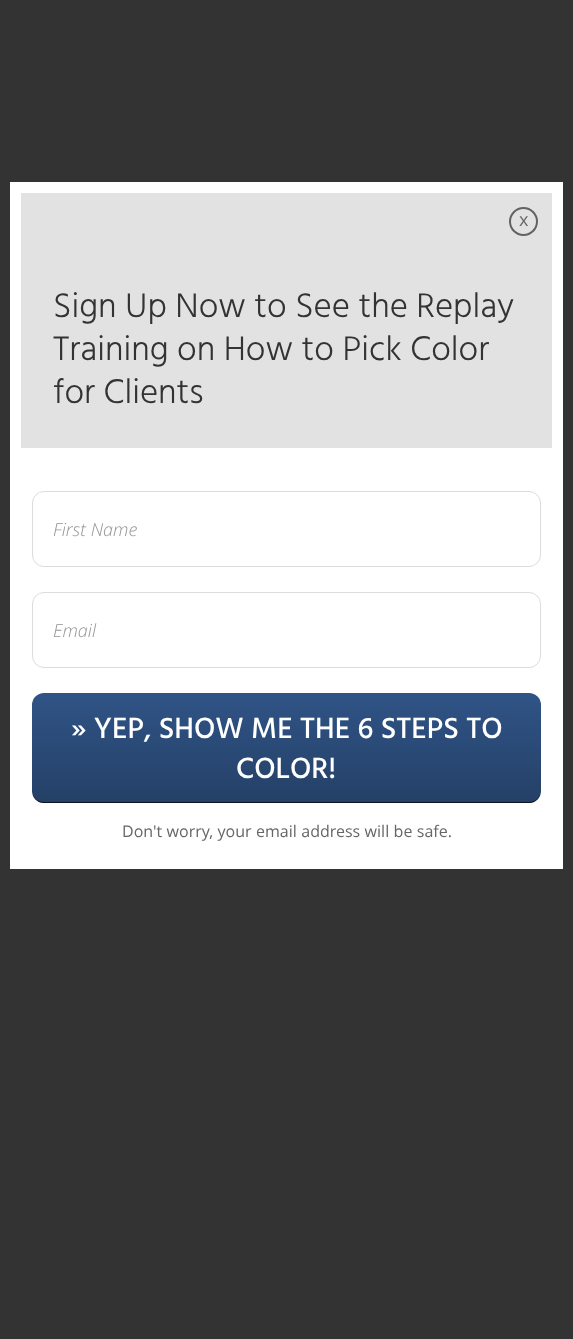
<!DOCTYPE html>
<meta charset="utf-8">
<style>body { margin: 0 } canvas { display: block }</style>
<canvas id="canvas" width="573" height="1339"></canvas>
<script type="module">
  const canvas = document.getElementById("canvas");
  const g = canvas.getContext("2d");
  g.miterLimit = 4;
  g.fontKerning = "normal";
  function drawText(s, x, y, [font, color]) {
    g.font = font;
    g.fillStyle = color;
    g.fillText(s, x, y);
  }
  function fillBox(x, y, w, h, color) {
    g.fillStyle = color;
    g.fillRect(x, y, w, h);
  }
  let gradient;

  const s1 = ["18px Open Sans", "#666666"];
  const s2 = ["300 35px Hind", "#333333"];
  const s3 = ["italic 300 18px Open Sans", "#949494"];
  const s4 = ["500 30px Hind", "#FFFFFF"];
  const s5 = ["16px Open Sans", "#666666"];

  fillBox(0, 0, 573, 1339, "#333333");
  fillBox(10, 182, 553, 687, "#FFFFFF");
  fillBox(21, 193, 531, 255, "#E2E2E2");
  g.beginPath();
  g.arc(523.5, 221.5, 13.5, 0, Math.PI * 2);
  g.strokeStyle = "#626262";
  g.lineWidth = 2;
  g.stroke();
  drawText("x", 519, 226, s1);
  drawText("Sign Up Now to See the Replay", 53, 317, s2);
  drawText("Training on How to Pick Color", 53, 360, s2);
  drawText("for Clients", 53, 403, s2);
  g.beginPath();
  g.roundRect(32.5, 491.5, 508, 75, 11.5);
  g.strokeStyle = "#DCDCDC";
  g.lineWidth = 1;
  g.stroke();
  drawText("First Name", 53, 536, s3);
  g.beginPath();
  g.roundRect(32.5, 592.5, 508, 75, 11.5);
  g.stroke();
  drawText("Email", 53, 637, s3);
  gradient = g.createLinearGradient(287, 693, 287, 803);
  gradient.addColorStop(0, "#305487");
  gradient.addColorStop(1, "#244066");
  g.fillStyle = gradient;
  g.beginPath();
  g.roundRect(32, 693, 509, 110, 12);
  g.fill();
  g.fillStyle = "rgba(0, 0, 0, 0.7)";
  g.beginPath();
  g.moveTo(32, 790);
  g.bezierCurveTo(32, 797, 37, 803, 44, 803);
  g.lineTo(529, 803);
  g.bezierCurveTo(536, 803, 541, 797, 541, 790);
  g.bezierCurveTo(541, 797, 536, 802, 529, 802);
  g.lineTo(44, 802);
  g.bezierCurveTo(37, 802, 32, 797, 32, 790);
  g.closePath();
  g.fill();
  drawText("» YEP, SHOW ME THE 6 STEPS TO", 71, 738, s4);
  drawText("COLOR!", 236, 778, s4);
  g.wordSpacing = "0.25px";
  drawText("Don't worry, your email address will be safe.", 122, 837, s5);
</script>
